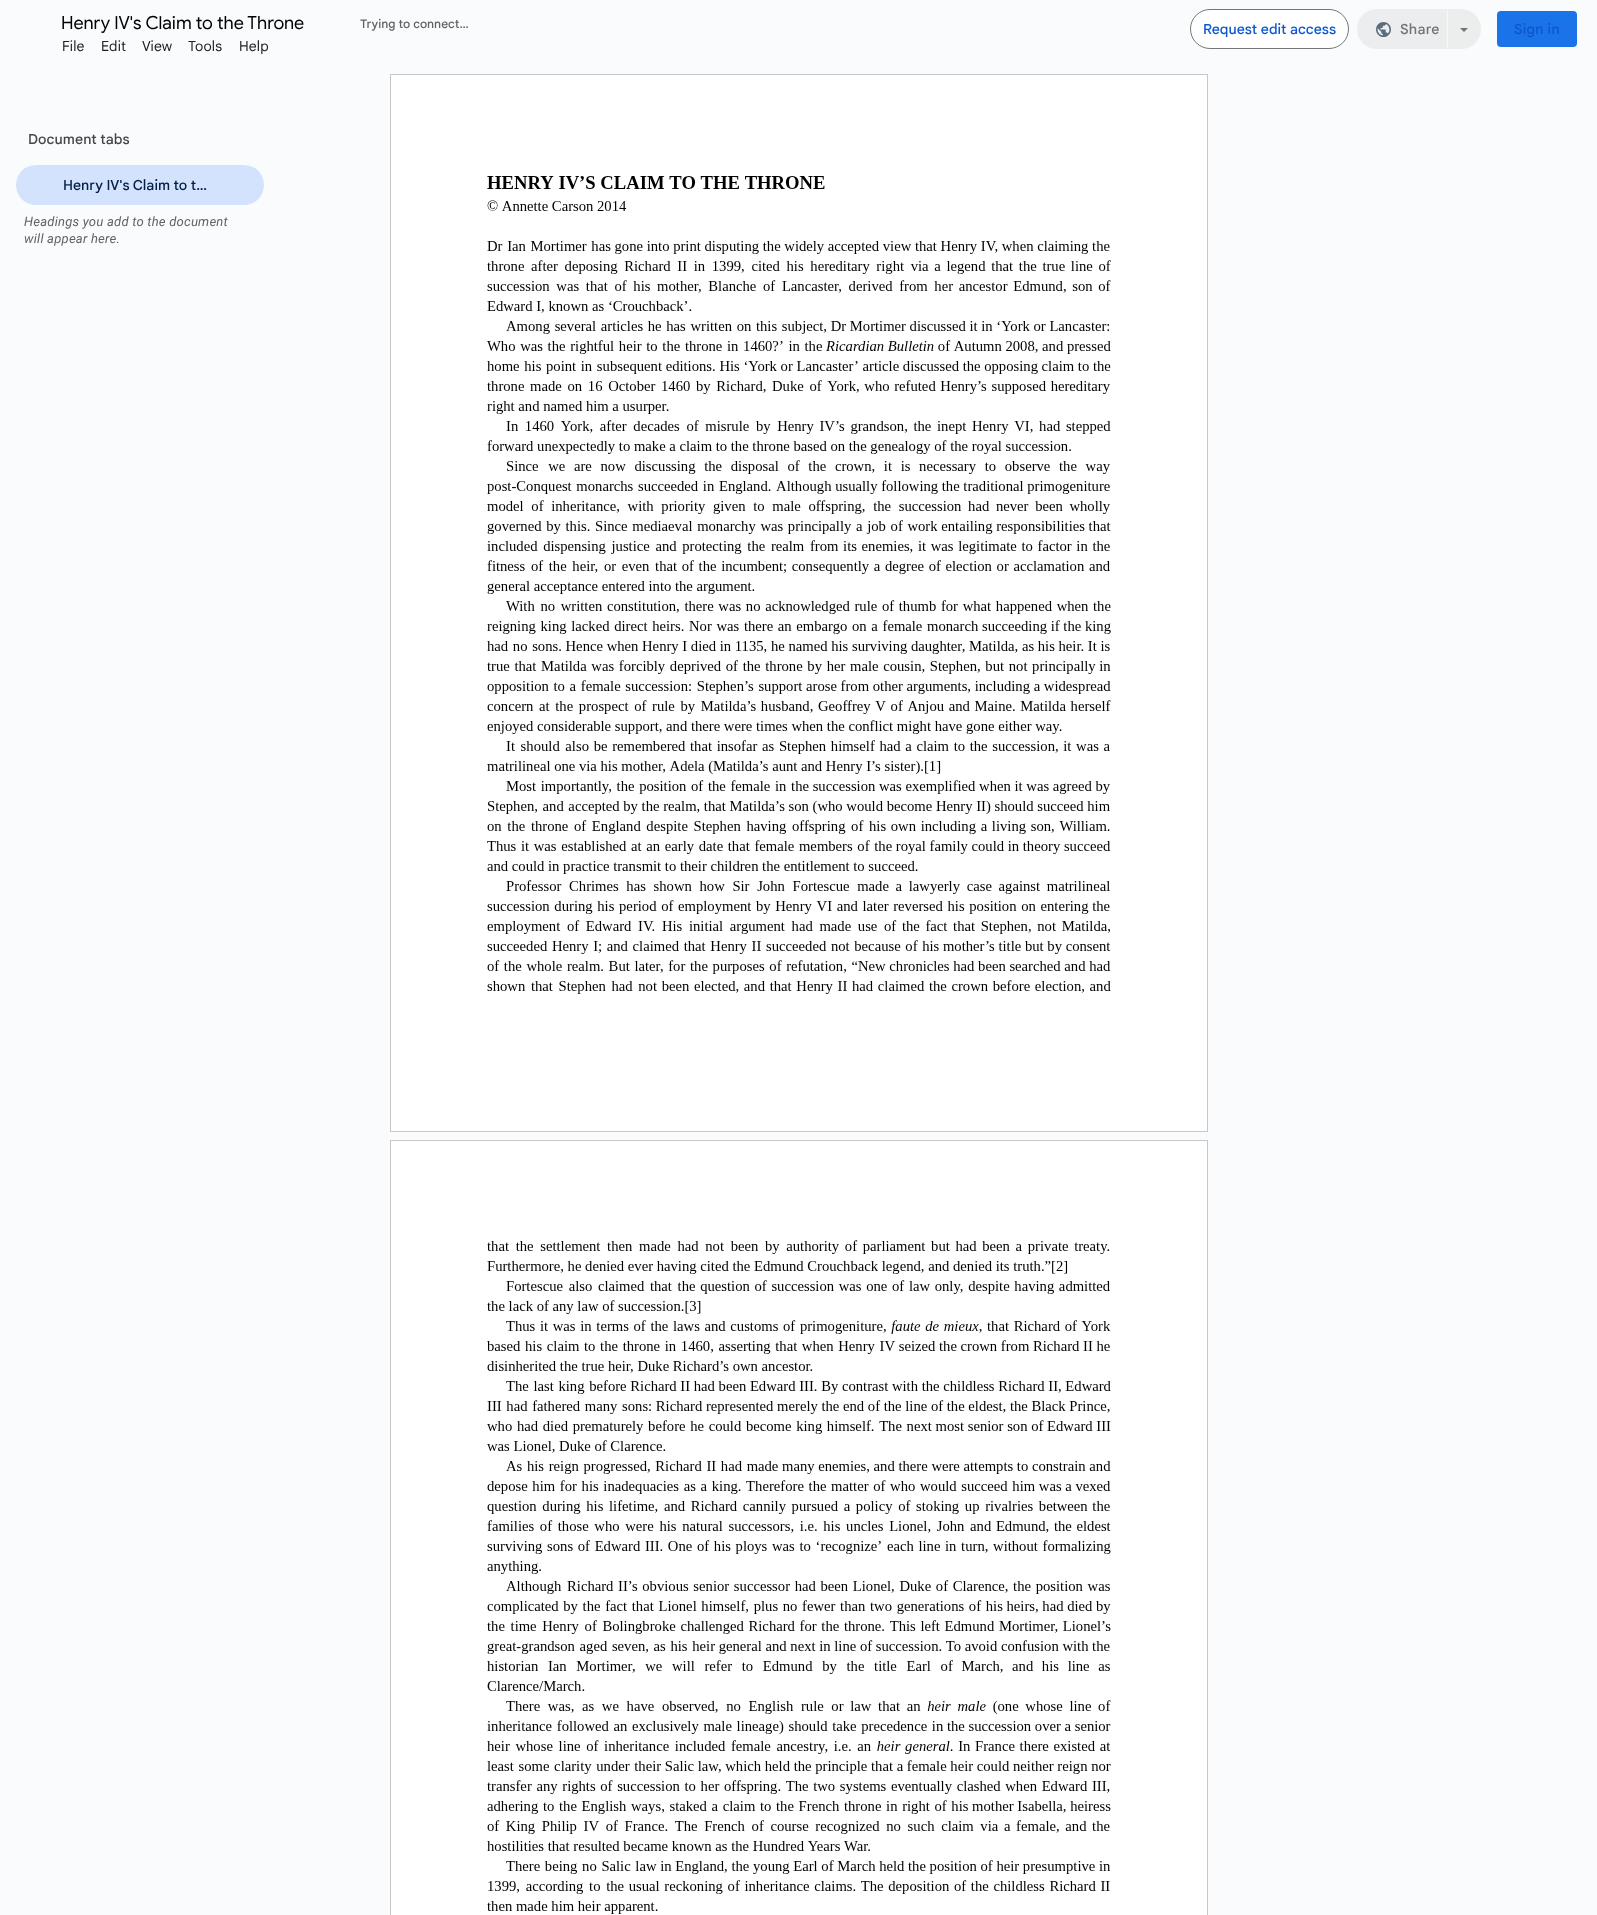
<!DOCTYPE html>
<meta charset="utf-8">
<style>body { margin: 0 } canvas { display: block }</style>
<canvas id="canvas" width="1597" height="1915"></canvas>
<script type="module">
  const canvas = document.getElementById("canvas");
  const g = canvas.getContext("2d");
  g.miterLimit = 4;
  g.fontKerning = "normal";
  function drawText(s, x, y, [font, color]) {
    g.font = font;
    g.fillStyle = color;
    g.fillText(s, x, y);
  }
  function fillBox(x, y, w, h, color) {
    g.fillStyle = color;
    g.fillRect(x, y, w, h);
  }
  function fillRounded(x, y, w, h, r, color) {
    g.fillStyle = color;
    g.beginPath();
    g.roundRect(x, y, w, h, r);
    g.fill();
  }
  async function drawPicture(src, x, y, w, h) {
    const img = new Image();
    img.src = src;
    await img.decode();
    g.drawImage(img, x, y, w, h);
  }

  const s1 = ["18px 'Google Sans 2'", "#000000"];
  const s2 = ["500 12px Google Sans", "#5F6368"];
  const s3 = ["500 14px Google Sans", "#0B57D0"];
  const s4 = ["500 14px Google Sans", "#727373"];
  const s5 = ["500 14px Google Sans", "#1155CC"];
  const s6 = ["14px Google Sans", "#202124"];
  const s7 = ["500 14px Google Sans", "#444746"];
  const s8 = ["500 14px Google Sans", "#041E49"];
  const s9 = ["italic 13px Roboto", "#5F6368"];

  fillBox(0, 0, 1597, 1915, "#F9FBFD");
  drawText("Henry IV's Claim to the Throne", 61, 29, s1);
  drawText("Trying to connect…", 360, 28, s2);
  g.fillStyle = "#FFFFFF";
  g.beginPath();
  g.roundRect(1190.5, 9.5, 158, 39, 19.5);
  g.fill();
  g.strokeStyle = "#747775";
  g.stroke();
  drawText("Request edit access", 1203, 34, s3);
  g.fillStyle = "#ECEDEE";
  g.beginPath();
  g.roundRect(1357, 9, 91, 40, [20, 0, 0, 20]);
  g.fill();
  await drawPicture("pic1.png", 1376, 22, 15, 15);
  g.letterSpacing = "0.25px";
  drawText("Share", 1400, 34, s4);
  g.fillStyle = "rgba(228, 228, 228, 0.62)";
  g.beginPath();
  g.roundRect(1447, 9, 34, 40, [0, 20, 20, 0]);
  g.fill();
  g.fillStyle = "#F8F8F9";
  g.beginPath();
  g.moveTo(1448, 10);
  g.lineTo(1447, 9);
  g.lineTo(1447, 49);
  g.lineTo(1448, 48);
  g.closePath();
  g.fill();
  g.fillStyle = "#727373";
  g.beginPath();
  g.moveTo(1460, 28);
  g.lineTo(1468, 28);
  g.lineTo(1464, 32);
  g.closePath();
  g.fill();
  fillRounded(1497, 11, 80, 36, 4, "#1A73E8");
  drawText("Sign in", 1514, 34, s5);
  g.letterSpacing = "0.2px";
  drawText("File", 62, 51, s6);
  drawText("Edit", 101, 51, s6);
  drawText("View", 142, 51, s6);
  drawText("Tools", 188, 51, s6);
  drawText("Help", 239, 51, s6);
  g.letterSpacing = "0.1px";
  drawText("Document tabs", 28, 144, s7);
  fillRounded(16, 165, 248, 40, 20, "#D3E3FD");
  g.letterSpacing = "0px";
  drawText("Henry IV's Claim to t…", 63, 190, s8);
  g.letterSpacing = "0.2px";
  drawText("Headings you add to the document", 24, 226, s9);
  drawText("will appear here.", 24, 243, s9);
  g.strokeStyle = "#C7C7C7";
  g.strokeRect(390.5, 74.5, 817, 1057);
  await drawPicture("pic2.png", 391, 75, 816, 1056);
  g.strokeRect(390.5, 1140.5, 817, 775);
  await drawPicture("pic3.png", 391, 1141, 816, 774);
</script>
